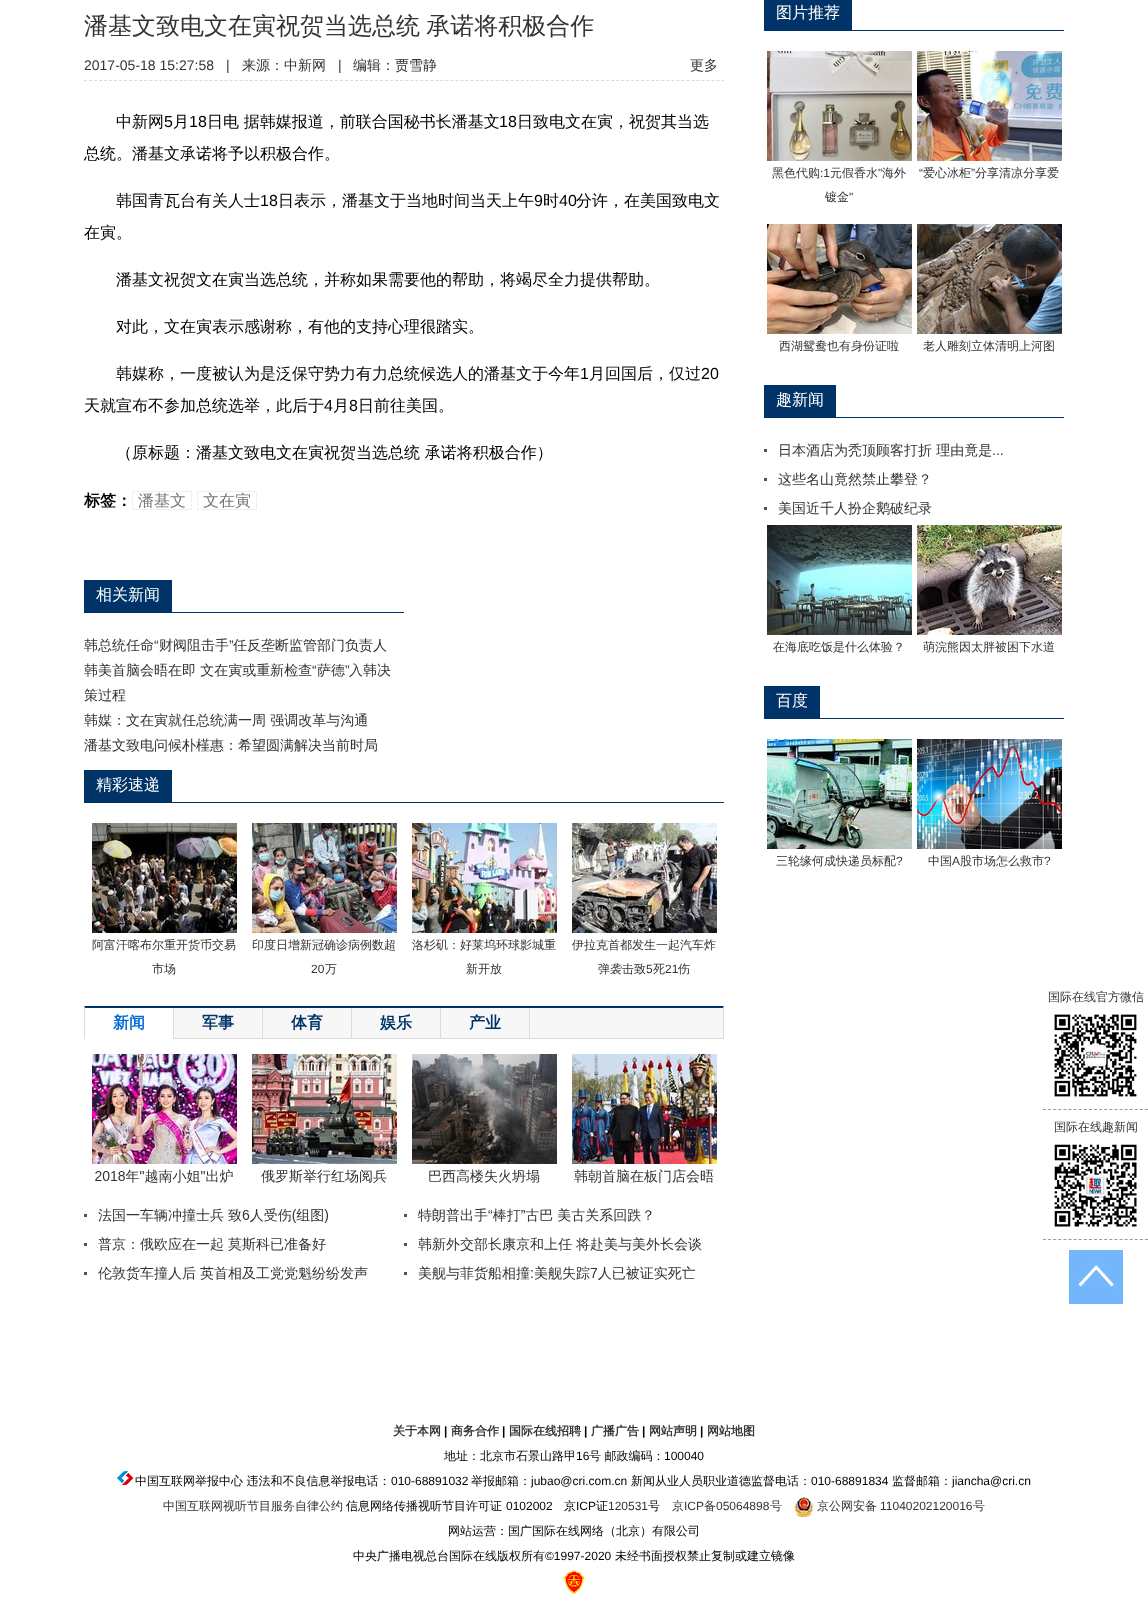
<!DOCTYPE html>
<meta charset="utf-8">
<style>body { margin: 0 } canvas { display: block }</style>
<canvas id="canvas" width="1148" height="1604"></canvas>
<script type="module">
  const canvas = document.getElementById("canvas");
  const g = canvas.getContext("2d");
  g.miterLimit = 4;
  g.fontKerning = "normal";
  function drawText(s, x, y, [font, color]) {
    g.font = font;
    g.fillStyle = color;
    g.fillText(s, x, y);
  }
  function fillBox(x, y, w, h, color) {
    g.fillStyle = color;
    g.fillRect(x, y, w, h);
  }
  async function drawPicture(src, x, y, w, h) {
    const img = new Image();
    img.src = src;
    await img.decode();
    g.drawImage(img, x, y, w, h);
  }

  const s1 = ["500 24px WenQuanYi Zen Hei", "#333333"];
  const s2 = ["14px Liberation Sans", "#333333"];
  const s3 = ["500 14px WenQuanYi Zen Hei", "#333333"];
  const s4 = ["500 16px WenQuanYi Zen Hei", "#000000"];
  const s5 = ["16px Liberation Sans", "#000000"];
  const s6 = ["bold 16px WenQuanYi Zen Hei", "#000000"];
  const s7 = ["500 16px WenQuanYi Zen Hei", "#757575"];
  const s8 = ["500 16px WenQuanYi Zen Hei", "#FFFFFF"];
  const s9 = ["500 12px WenQuanYi Zen Hei", "#333333"];
  const s10 = ["12px Liberation Sans", "#333333"];
  const s11 = ["bold 16px WenQuanYi Zen Hei", "#006AD9"];
  const s12 = ["bold 16px WenQuanYi Zen Hei", "#003368"];
  const s13 = ["bold 12px WenQuanYi Zen Hei", "#333333"];
  const s14 = ["bold 12px Liberation Sans", "#000000"];
  const s15 = ["500 12px WenQuanYi Zen Hei", "#000000"];
  const s16 = ["12px Liberation Sans", "#000000"];

  fillBox(0, 0, 1148, 1604, "#FFFFFF");
  g.wordSpacing = "-1px";
  drawText("潘基文致电文在寅祝贺当选总统 承诺将积极合作", 84, 34, s1);
  g.beginPath();
  g.moveTo(84, 80.5);
  g.lineTo(724, 80.5);
  g.strokeStyle = "#DADADA";
  g.setLineDash([3, 2.02]);
  g.stroke();
  g.wordSpacing = "0px";
  drawText("2017-05-18 15:27:58", 84, 70, s2);
  drawText("|", 226, 70, s2);
  drawText("来源：", 242, 70, s3);
  drawText("中新网", 284, 70, s3);
  drawText("|", 338, 70, s2);
  drawText("编辑：贾雪静", 353, 70, s3);
  drawText("更多", 690, 70, s3);
  drawText("中新网", 116, 127, s4);
  drawText("5", 164, 127, s5);
  drawText("月", 173, 127, s4);
  drawText("18", 189, 127, s5);
  drawText("日电 据韩媒报道，前联合国秘书长潘基文", 207, 127, s4);
  drawText("18", 499, 127, s5);
  drawText("日致电文在寅，祝贺其当选", 517, 127, s4);
  drawText("总统。潘基文承诺将予以积极合作。", 84, 159, s4);
  drawText("韩国青瓦台有关人士", 116, 206, s4);
  drawText("18", 260, 206, s5);
  drawText("日表示，潘基文于当地时间当天上午", 278, 206, s4);
  drawText("9", 534, 206, s5);
  drawText("时", 543, 206, s4);
  drawText("40", 559, 206, s5);
  drawText("分许，在美国致电文", 576, 206, s4);
  drawText("在寅。", 84, 238, s4);
  drawText("潘基文祝贺文在寅当选总统，并称如果需要他的帮助，将竭尽全力提供帮助。", 116, 285, s4);
  drawText("对此，文在寅表示感谢称，有他的支持心理很踏实。", 116, 332, s4);
  drawText("韩媒称，一度被认为是泛保守势力有力总统候选人的潘基文于今年", 116, 379, s4);
  drawText("1", 580, 379, s5);
  drawText("月回国后，仅过", 589, 379, s4);
  drawText("20", 701, 379, s5);
  drawText("天就宣布不参加总统选举，此后于", 84, 411, s4);
  drawText("4", 324, 411, s5);
  drawText("月", 333, 411, s4);
  drawText("8", 349, 411, s5);
  drawText("日前往美国。", 358, 411, s4);
  drawText("（原标题：潘基文致电文在寅祝贺当选总统 承诺将积极合作）", 116, 458, s4);
  drawText("标签：", 84, 506, s6);
  g.strokeStyle = "#EFEFEF";
  g.setLineDash([]);
  g.strokeRect(132.5, 491.5, 59, 18);
  drawText("潘基文", 138, 506, s7);
  g.strokeRect(197.5, 491.5, 59, 18);
  drawText("文在寅", 203, 506, s7);
  fillBox(172, 612, 232, 1, "#003368");
  fillBox(84, 580, 88, 33, "#003368");
  drawText("相关新闻", 96, 600, s8);
  drawText("韩总统任命", 84, 650, s3);
  drawText("“", 154, 650, s2);
  drawText("财阀阻击手", 159, 650, s3);
  drawText("”", 229, 650, s2);
  drawText("任反垄断监管部门负责人", 233, 650, s3);
  drawText("韩美首脑会晤在即 文在寅或重新检查", 84, 675, s3);
  drawText("“", 312, 675, s2);
  drawText("萨德", 317, 675, s3);
  drawText("”", 345, 675, s2);
  drawText("入韩决", 349, 675, s3);
  drawText("策过程", 84, 700, s3);
  drawText("韩媒：文在寅就任总统满一周 强调改革与沟通", 84, 725, s3);
  drawText("潘基文致电问候朴槿惠：希望圆满解决当前时局", 84, 750, s3);
  fillBox(172, 802, 552, 1, "#003368");
  fillBox(84, 770, 88, 33, "#003368");
  drawText("精彩速递", 96, 790, s8);
  await drawPicture("pic1.png", 92, 823, 145, 110);
  drawText("阿富汗喀布尔重开货币交易", 92, 949, s9);
  drawText("市场", 152, 973, s9);
  await drawPicture("pic2.png", 252, 823, 145, 110);
  drawText("印度日增新冠确诊病例数超", 252, 949, s9);
  drawText("20", 311, 973, s10);
  drawText("万", 325, 973, s9);
  await drawPicture("pic3.png", 412, 823, 145, 110);
  drawText("洛杉矶：好莱坞环球影城重", 412, 949, s9);
  drawText("新开放", 466, 973, s9);
  await drawPicture("pic4.png", 572, 823, 145, 110);
  drawText("伊拉克首都发生一起汽车炸", 572, 949, s9);
  drawText("弹袭击致", 598, 973, s9);
  drawText("5", 646, 973, s10);
  drawText("死", 653, 973, s9);
  drawText("21", 665, 973, s10);
  drawText("伤", 678, 973, s9);
  fillBox(174, 1008, 549, 30, "#F7F7F7");
  g.fillStyle = "#003368";
  g.beginPath();
  g.moveTo(84, 1006);
  g.lineTo(724, 1006);
  g.lineTo(723, 1008);
  g.lineTo(85, 1008);
  g.closePath();
  g.fill();
  g.fillStyle = "#DDDDDD";
  g.beginPath();
  g.moveTo(724, 1006);
  g.lineTo(724, 1039);
  g.lineTo(723, 1038);
  g.lineTo(723, 1008);
  g.closePath();
  g.fill();
  fillBox(84, 1038, 640, 1, "#DDDDDD");
  g.beginPath();
  g.moveTo(84, 1039);
  g.lineTo(84, 1006);
  g.lineTo(85, 1008);
  g.lineTo(85, 1038);
  g.closePath();
  g.fill();
  fillBox(85, 1038, 88, 1, "#FFFFFF");
  fillBox(173, 1008, 1, 31, "#DDDDDD");
  drawText("新闻", 113, 1028, s11);
  fillBox(262, 1008, 1, 30, "#DDDDDD");
  drawText("军事", 202, 1028, s12);
  fillBox(351, 1008, 1, 30, "#DDDDDD");
  drawText("体育", 291, 1028, s12);
  fillBox(440, 1008, 1, 30, "#DDDDDD");
  drawText("娱乐", 380, 1028, s12);
  fillBox(529, 1008, 1, 30, "#DDDDDD");
  drawText("产业", 469, 1028, s12);
  await drawPicture("pic5.png", 84, 1054, 633, 227);
  fillBox(852, 30, 212, 1, "#003368");
  fillBox(764, 0, 88, 31, "#003368");
  drawText("图片推荐", 776, 18, s8);
  await drawPicture("pic6.png", 767, 51, 145, 110);
  drawText("黑色代购", 772, 177, s9);
  drawText(":1", 820, 177, s10);
  drawText("元假香水", 830, 177, s9);
  drawText("\"", 878, 177, s10);
  drawText("海外", 882, 177, s9);
  drawText("镀金", 825, 201, s9);
  drawText("\"", 849, 201, s10);
  await drawPicture("pic7.png", 917, 51, 145, 110);
  drawText("“", 919, 177, s10);
  drawText("爱心冰柜", 923, 177, s9);
  drawText("”", 971, 177, s10);
  drawText("分享清凉分享爱", 975, 177, s9);
  await drawPicture("pic8.png", 767, 224, 145, 110);
  drawText("西湖鸳鸯也有身份证啦", 779, 350, s9);
  await drawPicture("pic9.png", 917, 224, 145, 110);
  drawText("老人雕刻立体清明上河图", 923, 350, s9);
  fillBox(836, 417, 228, 1, "#003368");
  fillBox(764, 385, 72, 33, "#003368");
  drawText("趣新闻", 776, 405, s8);
  fillBox(764, 449, 3, 3, "#535353");
  drawText("日本酒店为秃顶顾客打折 理由竟是", 778, 455, s3);
  drawText("...", 992, 455, s2);
  fillBox(764, 478, 3, 3, "#535353");
  drawText("这些名山竟然禁止攀登？", 778, 484, s3);
  fillBox(764, 507, 3, 3, "#535353");
  drawText("美国近千人扮企鹅破纪录", 778, 513, s3);
  await drawPicture("pic10.png", 767, 525, 145, 110);
  drawText("在海底吃饭是什么体验？", 773, 651, s9);
  await drawPicture("pic11.png", 917, 525, 145, 110);
  drawText("萌浣熊因太胖被困下水道", 923, 651, s9);
  fillBox(820, 718, 244, 1, "#003368");
  fillBox(764, 686, 56, 33, "#003368");
  drawText("百度", 776, 706, s8);
  await drawPicture("pic12.png", 767, 739, 145, 110);
  drawText("三轮缘何成快递员标配", 776, 865, s9);
  drawText("?", 896, 865, s10);
  await drawPicture("pic13.png", 917, 739, 145, 110);
  drawText("中国", 928, 865, s9);
  drawText("A", 952, 865, s10);
  drawText("股市场怎么救市", 960, 865, s9);
  drawText("?", 1044, 865, s10);
  g.beginPath();
  g.moveTo(1043, 1109.5);
  g.lineTo(1148, 1109.5);
  g.strokeStyle = "#999999";
  g.setLineDash([3, 2.1]);
  g.stroke();
  drawText("国际在线官方微信", 1048, 1001, s9);
  await drawPicture("pic14.png", 1048, 1008, 95, 95);
  g.beginPath();
  g.moveTo(1043, 1239.5);
  g.lineTo(1148, 1239.5);
  g.stroke();
  drawText("国际在线趣新闻", 1054, 1131, s9);
  await drawPicture("pic15.png", 1054, 1144, 83, 83);
  await drawPicture("pic16.png", 1069, 1250, 54, 54);
  drawText("关于本网", 393, 1435, s13);
  drawText("|", 444, 1435, s14);
  drawText("商务合作", 451, 1435, s13);
  drawText("|", 502, 1435, s14);
  drawText("国际在线招聘", 509, 1435, s13);
  drawText("|", 584, 1435, s14);
  drawText("广播广告", 591, 1435, s13);
  drawText("|", 642, 1435, s14);
  drawText("网站声明", 649, 1435, s13);
  drawText("|", 700, 1435, s14);
  drawText("网站地图", 707, 1435, s13);
  drawText("地址：北京市石景山路甲", 444, 1460, s15);
  drawText("16", 576, 1460, s16);
  drawText("号 邮政编码：", 589, 1460, s15);
  drawText("100040", 664, 1460, s16);
  await drawPicture("pic17.png", 117, 1471, 16, 14);
  drawText("中国互联网举报中心 违法和不良信息举报电话：", 135, 1485, s15);
  drawText("010-68891032", 391, 1485, s16);
  drawText("举报邮箱：", 471, 1485, s15);
  drawText("jubao@cri.com.cn", 531, 1485, s16);
  drawText("新闻从业人员职业道德监督电话：", 631, 1485, s15);
  drawText("010-68891834", 811, 1485, s16);
  drawText("监督邮箱：", 892, 1485, s15);
  drawText("jiancha@cri.cn", 952, 1485, s16);
  drawText("中国互联网视听节目服务自律公约", 163, 1510, s9);
  drawText("信息网络传播视听节目许可证", 346, 1510, s15);
  drawText("0102002", 506, 1510, s16);
  drawText("京", 564, 1510, s15);
  drawText("ICP", 576, 1510, s16);
  drawText("证", 596, 1510, s15);
  drawText("120531", 608, 1510, s10);
  drawText("号", 648, 1510, s15);
  drawText("京", 672, 1510, s9);
  drawText("ICP", 684, 1510, s10);
  drawText("备", 704, 1510, s9);
  drawText("05064898", 716, 1510, s10);
  drawText("号", 770, 1510, s9);
  await drawPicture("pic18.png", 795, 1497, 18, 20);
  drawText("京公网安备", 817, 1510, s9);
  drawText("11040202120016", 880, 1510, s10);
  drawText("号", 973, 1510, s9);
  drawText("网站运营：国广国际在线网络（北京）有限公司", 448, 1535, s15);
  drawText("中央广播电视总台国际在线版权所有", 353, 1560, s15);
  drawText("©1997-2020", 545, 1560, s16);
  drawText("未经书面授权禁止复制或建立镜像", 615, 1560, s15);
  await drawPicture("pic19.png", 563, 1570, 22, 25);
</script>
